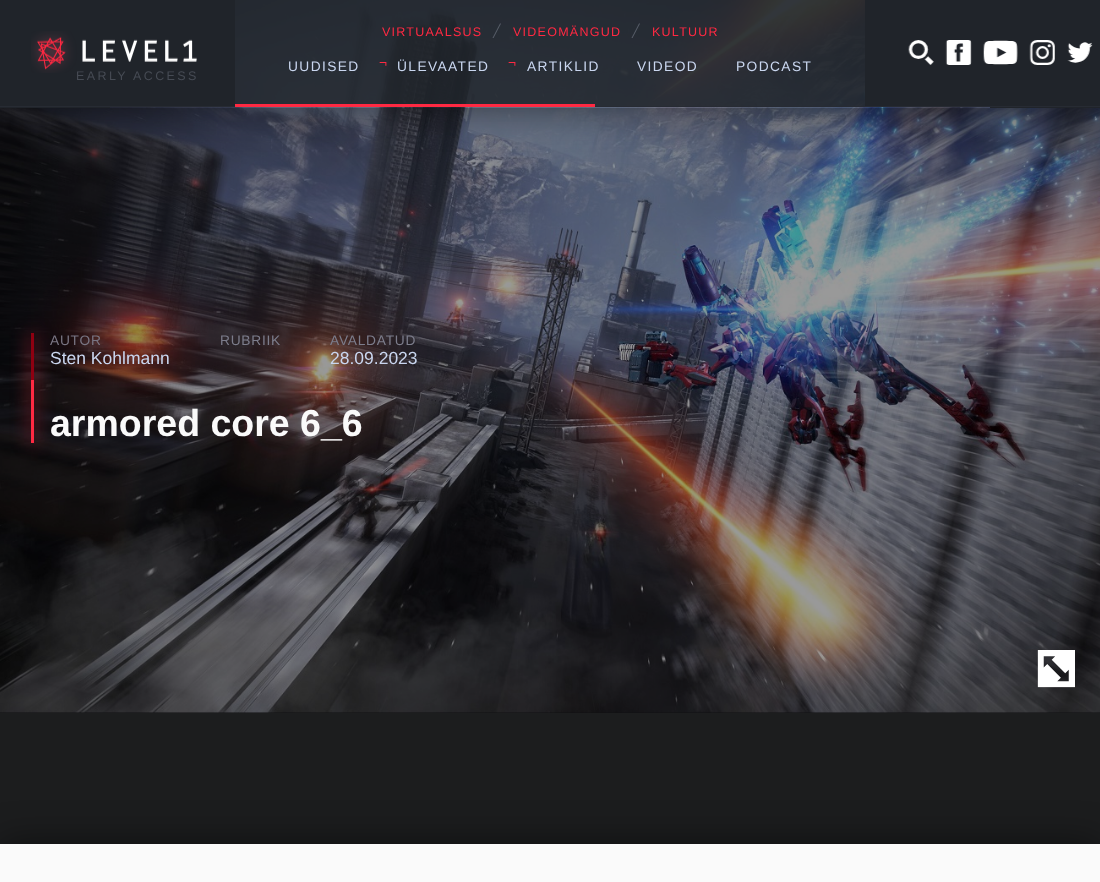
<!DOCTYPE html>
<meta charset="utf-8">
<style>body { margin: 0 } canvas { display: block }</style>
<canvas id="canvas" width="1100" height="882"></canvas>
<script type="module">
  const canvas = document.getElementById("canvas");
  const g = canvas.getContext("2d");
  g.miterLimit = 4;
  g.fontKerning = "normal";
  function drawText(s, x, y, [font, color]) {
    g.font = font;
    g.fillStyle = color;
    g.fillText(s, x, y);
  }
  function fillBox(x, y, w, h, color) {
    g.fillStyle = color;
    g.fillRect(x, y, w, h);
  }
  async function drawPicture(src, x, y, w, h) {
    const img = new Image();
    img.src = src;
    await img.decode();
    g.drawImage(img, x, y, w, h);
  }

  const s1 = ["12.5px Liberation Sans", "#FF2942"];
  const s2 = ["12.5px DejaVu Sans", "#575D68"];
  const s3 = ["13.75px Liberation Sans", "#C9D6EF"];
  const s4 = ["13.75px Liberation Sans", "#FF2942"];
  const s5 = ["12.5px Liberation Sans", "#464B54"];
  const s6 = ["13.75px Liberation Sans", "#797684"];
  const s7 = ["17.5px Liberation Sans", "#C9D6EF"];
  const s8 = ["13.75px Liberation Sans", "#7C7D8C"];
  const s9 = ["bold 37.5px Liberation Sans", "#FAFAFA"];

  fillBox(0, 0, 1100, 882, "#1C1D1E");
  fillBox(0, 712, 1100, 1, "#111112");
  await drawPicture("pic7.png", 0, 0, 1100, 713);
  g.save();
  g.beginPath();
  g.moveTo(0, 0);
  g.lineTo(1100, 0);
  g.lineTo(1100, 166);
  g.lineTo(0, 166);
  g.closePath();
  g.moveTo(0, 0);
  g.lineTo(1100, 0);
  g.lineTo(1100, 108);
  g.lineTo(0, 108);
  g.closePath();
  g.clip("evenodd");
  g.fillStyle = "rgba(0, 0, 0, 0.5)";
  g.filter = "blur(19px)";
  g.beginPath();
  g.rect(0, 0, 1100, 108);
  g.fill();
  g.filter = "none";
  g.restore();
  fillBox(0, 0, 110, 108, "#20242A");
  fillBox(990, 0, 110, 108, "#20242A");
  fillBox(0, 106, 1100, 1, "#272B33");
  fillBox(235, 0, 630, 106, "rgba(32, 36, 42, 0.85)");
  g.letterSpacing = "1.25px";
  drawText("VIRTUAALSUS", 382, 36, s1);
  drawText("╱", 493, 35, s2);
  drawText("VIDEOMÄNGUD", 513, 36, s1);
  drawText("╱", 632, 35, s2);
  drawText("KULTUUR", 652, 36, s1);
  g.letterSpacing = "1.4px";
  drawText("UUDISED", 288, 71, s3);
  drawText("¬", 379, 67, s4);
  drawText("ÜLEVAATED", 397, 71, s3);
  drawText("¬", 508, 67, s4);
  drawText("ARTIKLID", 527, 71, s3);
  drawText("VIDEOD", 637, 71, s3);
  drawText("PODCAST", 736, 71, s3);
  fillBox(865, 0, 125, 106, "#20242A");
  await drawPicture("pic1.png", 908, 40, 26, 25);
  await drawPicture("pic2.png", 945, 40, 27, 25);
  await drawPicture("pic3.png", 983, 40, 35, 25);
  await drawPicture("pic4.png", 1029, 40, 26, 25);
  await drawPicture("pic5.png", 1067, 42, 26, 21);
  fillBox(110, 0, 125, 106, "#20242A");
  await drawPicture("pic6.png", 31, 31, 166, 42);
  g.letterSpacing = "2.4px";
  drawText("EARLY ACCESS", 76, 80, s5);
  fillBox(235, 104, 360, 3, "#FF2942");
  g.filter = "blur(9px)";
  g.beginPath();
  g.rect(31, 333, 3, 110);
  g.fill();
  g.filter = "none";
  fillBox(31, 380, 3, 63, "#FF2942");
  fillBox(31, 333, 3, 47, "#8F0011");
  g.letterSpacing = "0.75px";
  drawText("AUTOR", 50, 345, s6);
  g.letterSpacing = "0px";
  drawText("Sten Kohlmann", 50, 364, s7);
  g.letterSpacing = "0.75px";
  drawText("RUBRIIK", 220, 345, s8);
  drawText("AVALDATUD", 330, 345, s8);
  g.letterSpacing = "0px";
  drawText("28.09.2023", 330, 364, s7);
  drawText("armored core 6_6", 50, 436, s9);
  await drawPicture("pic8.png", 1037, 650, 38, 38);
  g.fillStyle = "rgba(0, 0, 0, 0.5)";
  g.filter = "blur(19px)";
  g.beginPath();
  g.rect(0, 844, 1100, 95);
  g.fill();
  g.filter = "none";
  fillBox(0, 844, 1100, 38, "#FAFAFA");
</script>
